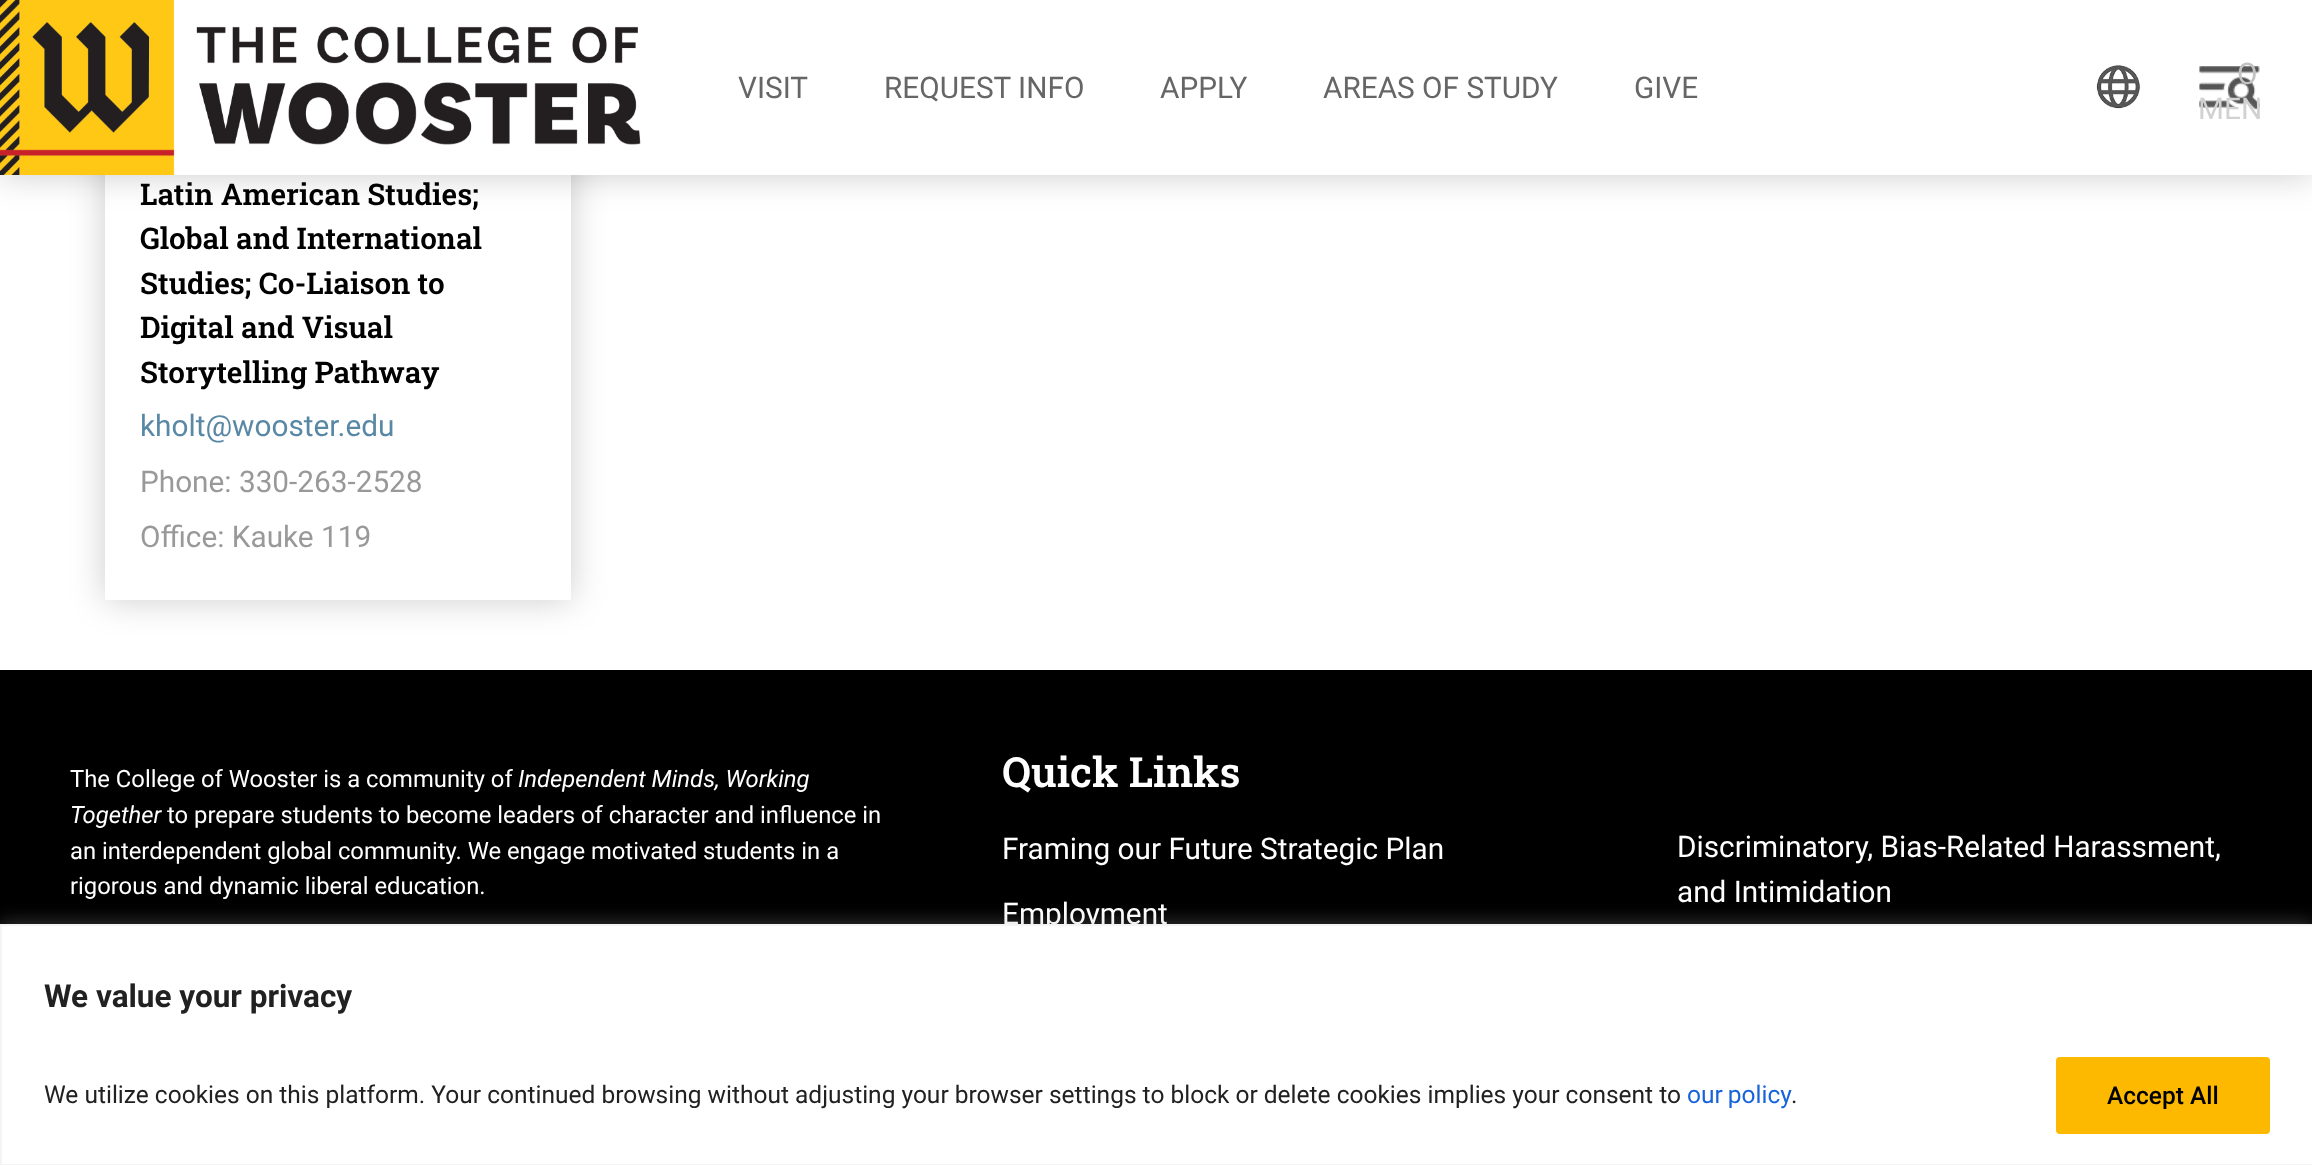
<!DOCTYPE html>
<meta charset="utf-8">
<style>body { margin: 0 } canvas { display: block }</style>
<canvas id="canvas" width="2312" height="1165"></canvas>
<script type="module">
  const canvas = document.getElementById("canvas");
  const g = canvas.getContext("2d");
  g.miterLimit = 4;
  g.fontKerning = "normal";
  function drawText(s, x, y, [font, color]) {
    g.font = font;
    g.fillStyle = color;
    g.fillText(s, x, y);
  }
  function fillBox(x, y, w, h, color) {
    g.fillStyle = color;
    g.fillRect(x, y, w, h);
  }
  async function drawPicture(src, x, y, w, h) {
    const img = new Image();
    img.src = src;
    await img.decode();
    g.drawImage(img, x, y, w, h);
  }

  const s1 = ["29.75px Roboto", "#666666"];
  const s2 = ["29.75px Roboto", "#C2C2C2"];
  const s3 = ["29.75px Roboto", "#D1D1D1"];
  const s4 = ["600 29.75px Roboto Slab", "#000000"];
  const s5 = ["29.75px Roboto", "#5988A5"];
  const s6 = ["29.75px Roboto", "#999999"];
  const s7 = ["23.8px Roboto", "#FFFFFF"];
  const s8 = ["italic 23.8px Roboto", "#FFFFFF"];
  const s9 = ["600 41.5px Roboto Slab", "#FFFFFF"];
  const s10 = ["29.75px Roboto", "#FFFFFF"];
  const s11 = ["bold 31.5px Roboto", "#212121"];
  const s12 = ["24.5px Roboto", "#212121"];
  const s13 = ["24.5px Roboto", "#1863DC"];
  const s14 = ["500 24.5px Roboto", "#000000"];

  fillBox(0, 0, 2312, 1165, "#FFFFFF");
  g.fillStyle = "rgba(0, 0, 0, 0.2)";
  g.filter = "blur(17.5px)";
  g.beginPath();
  g.rect(0, 0, 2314, 175);
  g.fill();
  g.filter = "none";
  g.save();
  g.beginPath();
  g.moveTo(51, 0);
  g.lineTo(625, 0);
  g.lineTo(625, 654);
  g.lineTo(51, 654);
  g.closePath();
  g.moveTo(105, -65);
  g.lineTo(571, -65);
  g.lineTo(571, 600);
  g.lineTo(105, 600);
  g.closePath();
  g.clip("evenodd");
  g.filter = "blur(17.5px)";
  g.beginPath();
  g.rect(105, -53, 466, 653);
  g.fill();
  g.filter = "none";
  g.restore();
  fillBox(173, 0, 2139, 175, "#FFFFFF");
  await drawPicture("pic1.png", 0, 0, 641, 175);
  drawText("VISIT", 738, 98, s1);
  drawText("REQUEST INFO", 884, 98, s1);
  drawText("APPLY", 1160, 98, s1);
  drawText("AREAS OF STUDY", 1323, 98, s1);
  drawText("GIVE", 1634, 98, s1);
  await drawPicture("pic2.png", 2096, 64, 45, 45);
  await drawPicture("pic3.png", 2199, 66, 61, 44);
  drawText("O", 2237, 84, s2);
  drawText("MEN", 2198, 119, s3);
  drawText("Latin American Studies;", 140, 205, s4);
  drawText("Global and International", 140, 249, s4);
  drawText("Studies; Co-Liaison to", 140, 294, s4);
  drawText("Digital and Visual", 140, 338, s4);
  drawText("Storytelling Pathway", 140, 383, s4);
  drawText("kholt@wooster.edu", 140, 436, s5);
  drawText("Phone: 330-263-2528", 140, 492, s6);
  drawText("Office: Kauke 119", 140, 547, s6);
  fillBox(0, 670, 2312, 254, "#000000");
  drawText("The College of Wooster is a community of", 70, 787, s7);
  drawText("Independent Minds, Working", 518, 787, s8);
  drawText("Together", 70, 823, s8);
  drawText("to prepare students to become leaders of character and influence in", 167, 823, s7);
  drawText("an interdependent global community. We engage motivated students in a", 70, 859, s7);
  drawText("rigorous and dynamic liberal education.", 70, 894, s7);
  drawText("Quick Links", 1002, 787, s9);
  drawText("Framing our Future Strategic Plan", 1002, 859, s10);
  drawText("Employment", 1002, 924, s10);
  drawText("Discriminatory, Bias-Related Harassment,", 1677, 857, s10);
  drawText("and Intimidation", 1677, 902, s10);
  g.fillStyle = "rgba(172, 171, 171, 0.3)";
  g.filter = "blur(9px)";
  g.beginPath();
  g.rect(0, 922, 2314, 242);
  g.fill();
  g.filter = "none";
  g.fillStyle = "#FFFFFF";
  g.beginPath();
  g.rect(1, 925, 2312, 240);
  g.fill();
  g.strokeStyle = "#F4F4F4";
  g.lineWidth = 2;
  g.stroke();
  drawText("We value your privacy", 44, 1007, s11);
  drawText("We utilize cookies on this platform. Your continued browsing without adjusting your browser settings to block or delete cookies implies your consent to", 44, 1103, s12);
  g.wordSpacing = "-1px";
  drawText("our policy", 1687, 1103, s13);
  g.wordSpacing = "0px";
  drawText(".", 1791, 1103, s12);
  g.fillStyle = "#FCB900";
  g.beginPath();
  g.roundRect(2058, 1059, 210, 73, 2);
  g.fill();
  g.strokeStyle = "#FCB900";
  g.lineWidth = 4;
  g.stroke();
  drawText("Accept All", 2107, 1104, s14);
</script>
